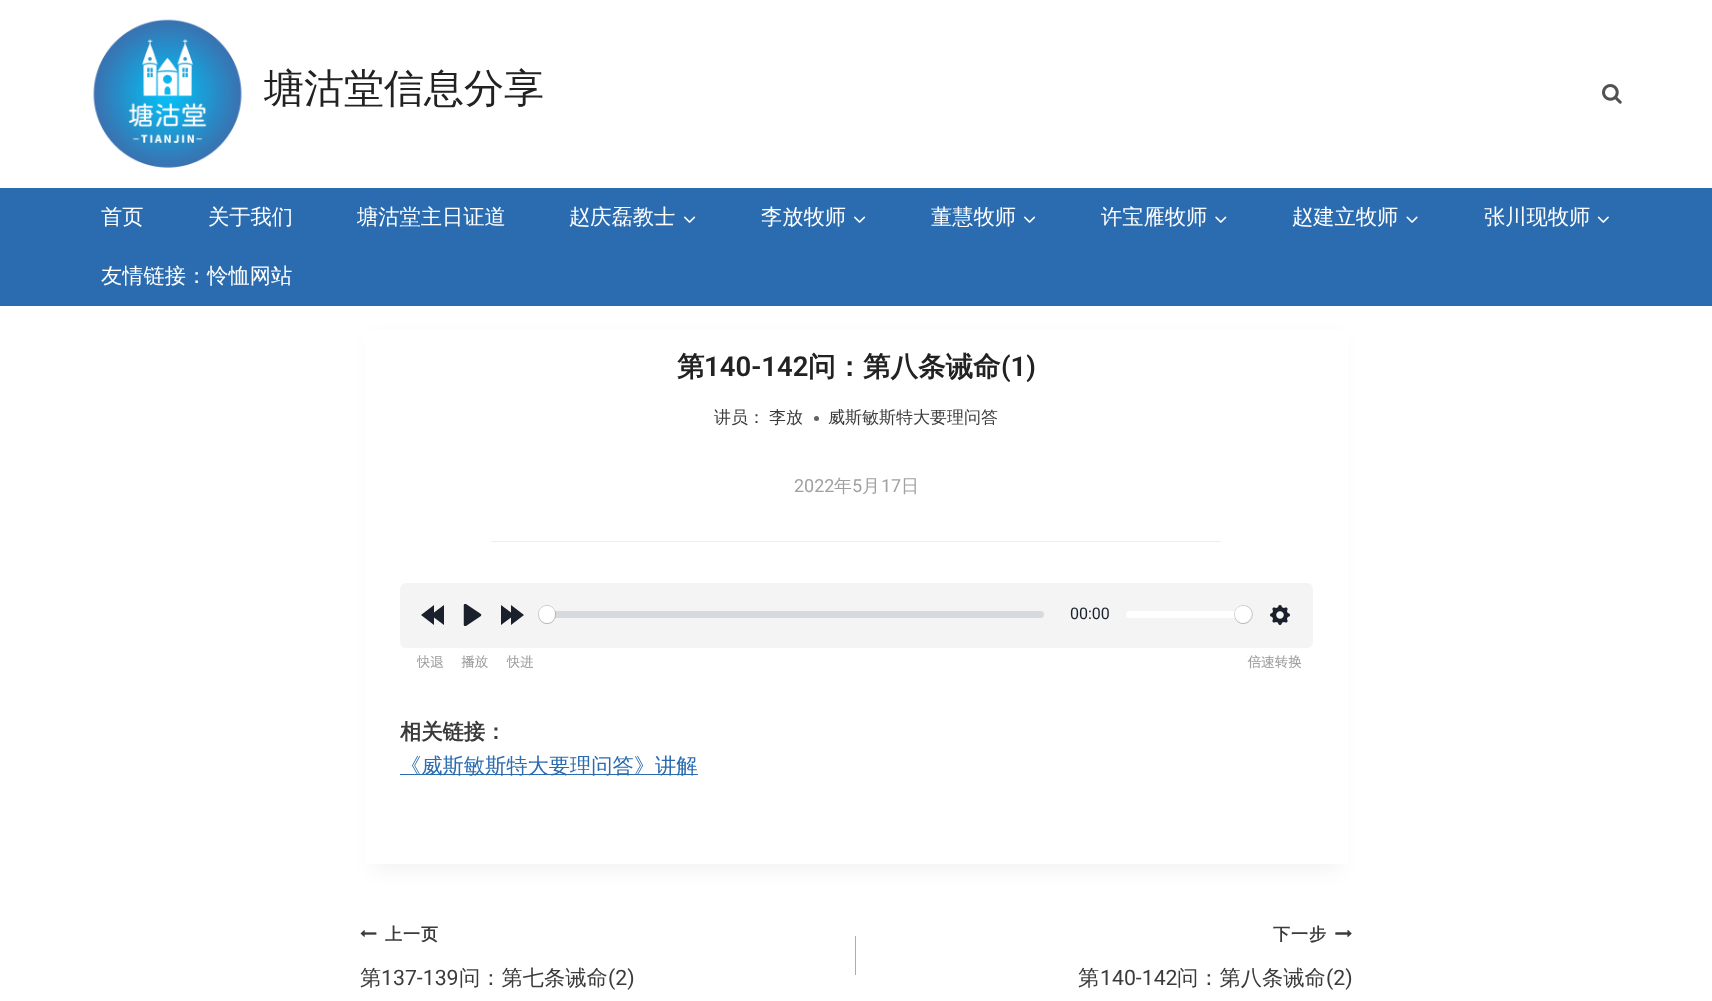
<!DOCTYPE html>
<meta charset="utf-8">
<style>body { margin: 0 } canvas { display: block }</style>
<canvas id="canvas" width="1712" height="1001"></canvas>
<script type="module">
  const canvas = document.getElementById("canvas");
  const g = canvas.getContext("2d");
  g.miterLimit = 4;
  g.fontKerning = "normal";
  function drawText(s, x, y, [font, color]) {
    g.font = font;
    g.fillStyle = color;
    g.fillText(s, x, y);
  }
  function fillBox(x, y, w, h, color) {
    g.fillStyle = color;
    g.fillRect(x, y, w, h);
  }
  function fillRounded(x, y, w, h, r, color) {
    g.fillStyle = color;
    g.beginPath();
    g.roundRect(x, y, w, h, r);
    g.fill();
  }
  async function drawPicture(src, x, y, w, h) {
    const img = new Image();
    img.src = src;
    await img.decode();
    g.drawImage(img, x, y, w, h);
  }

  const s1 = ["500 40px WenQuanYi Zen Hei", "#222222"];
  const s2 = ["500 21.25px WenQuanYi Zen Hei", "#FFFFFF"];
  const s3 = ["bold 27.5px WenQuanYi Zen Hei", "#222222"];
  const s4 = ["600 27.5px Roboto", "#222222"];
  const s5 = ["500 17px WenQuanYi Zen Hei", "#3B3B3B"];
  const s6 = ["18px Roboto", "#A0A0A0"];
  const s7 = ["500 18px WenQuanYi Zen Hei", "#A0A0A0"];
  const s8 = ["16px Roboto", "#1A202C"];
  const s9 = ["bold 21.25px WenQuanYi Zen Hei", "#3B3B3B"];
  const s10 = ["500 21.25px WenQuanYi Zen Hei", "#2B6CB0"];
  const s11 = ["bold 17px WenQuanYi Zen Hei", "#3B3B3B"];
  const s12 = ["500 21.25px WenQuanYi Zen Hei", "#3B3B3B"];
  const s13 = ["21.25px Roboto", "#3B3B3B"];

  fillBox(0, 0, 1712, 1001, "#FFFFFF");
  await drawPicture("pic1.png", 93, 19, 149, 149);
  drawText("塘沽堂信息分享", 264, 102, s1);
  await drawPicture("pic2.png", 1602, 84, 20, 20);
  fillBox(0, 188, 1712, 118, "#2B6CB0");
  drawText("首页", 101, 224, s2);
  drawText("关于我们", 208, 224, s2);
  drawText("塘沽堂主日证道", 357, 224, s2);
  drawText("赵庆磊教士", 569, 224, s2);
  await drawPicture("pic3.png", 684, 216, 12, 7);
  drawText("李放牧师", 761, 224, s2);
  await drawPicture("pic3.png", 854, 216, 12, 7);
  drawText("董慧牧师", 931, 224, s2);
  await drawPicture("pic3.png", 1024, 216, 12, 7);
  drawText("许宝雁牧师", 1101, 224, s2);
  await drawPicture("pic4.png", 1215, 216, 12, 7);
  drawText("赵建立牧师", 1292, 224, s2);
  await drawPicture("pic5.png", 1406, 216, 12, 7);
  drawText("张川现牧师", 1484, 224, s2);
  await drawPicture("pic6.png", 1597, 216, 12, 7);
  drawText("友情链接：怜恤网站", 101, 283, s2);
  g.fillStyle = "rgba(0, 0, 0, 0.05)";
  g.filter = "blur(9.5px)";
  g.beginPath();
  g.rect(373, 338, 967, 532);
  g.fill();
  g.filter = "none";
  fillBox(365, 330, 983, 534, "#FFFFFF");
  drawText("第", 677, 376, s3);
  drawText("140-142", 704, 376, s4);
  drawText("问：第八条诫命", 808, 376, s3);
  drawText("(1)", 1001, 376, s4);
  drawText("讲员：", 714, 423, s5);
  drawText("李放", 769, 423, s5);
  g.fillStyle = "#626262";
  g.beginPath();
  g.arc(816.5, 418.5, 2.5, 0, Math.PI * 2);
  g.fill();
  drawText("威斯敏斯特大要理问答", 828, 423, s5);
  drawText("2022", 794, 492, s6);
  drawText("年", 834, 492, s7);
  drawText("5", 852, 492, s6);
  drawText("月", 862, 492, s7);
  drawText("17", 881, 492, s6);
  drawText("日", 901, 492, s7);
  fillBox(491, 541, 730, 1, "#EEEEEE");
  fillRounded(400, 583, 913, 65, 6, "#F4F4F4");
  g.fillStyle = "#1A202C";
  g.beginPath();
  g.moveTo(434, 605);
  g.lineTo(421, 615);
  g.lineTo(434, 625);
  g.lineTo(434, 617.5);
  g.lineTo(444, 625);
  g.lineTo(444, 605);
  g.lineTo(434, 612.5);
  g.closePath();
  g.fill();
  await drawPicture("pic7.png", 463, 604, 19, 22);
  g.beginPath();
  g.moveTo(511, 612.5);
  g.lineTo(501, 605);
  g.lineTo(501, 625);
  g.lineTo(511, 617.5);
  g.lineTo(511, 625);
  g.lineTo(524, 615);
  g.lineTo(511, 605);
  g.closePath();
  g.fill();
  fillRounded(539, 611, 505, 7, 3.5, "rgba(193, 200, 209, 0.6)");
  g.beginPath();
  g.roundRect(538.5, 605.5, 17, 18, 8.5);
  g.strokeStyle = "rgba(35, 40, 47, 0.2)";
  g.stroke();
  g.fillStyle = "rgba(35, 40, 47, 0.15)";
  g.filter = "blur(0.5px)";
  g.beginPath();
  g.roundRect(539, 608, 16, 16, 8);
  g.fill();
  g.filter = "none";
  fillRounded(539, 606, 16, 17, 8, "#FFFFFF");
  drawText("00:00", 1070, 619, s8);
  fillRounded(1126, 611, 125, 7, 3.5, "#FFFFFF");
  g.beginPath();
  g.arc(1243.5, 614.5, 9, 0, Math.PI * 2);
  g.stroke();
  g.fillStyle = "rgba(35, 40, 47, 0.15)";
  g.filter = "blur(0.5px)";
  g.beginPath();
  g.roundRect(1235, 608, 16, 16, 8);
  g.fill();
  g.filter = "none";
  fillRounded(1235, 606, 16, 17, 8, "#FFFFFF");
  await drawPicture("pic8.png", 1270, 605, 20, 20);
  await drawPicture("pic9.png", 416, 655, 117, 13);
  await drawPicture("pic10.png", 1247, 655, 55, 14);
  drawText("相关链接：", 400, 739, s9);
  fillBox(400, 774, 298, 1, "#2B6CB0");
  drawText("《威斯敏斯特大要理问答》讲解", 400, 773, s10);
  await drawPicture("pic11.png", 360, 930, 17, 7);
  g.letterSpacing = "1px";
  drawText("上一页", 385, 940, s11);
  g.letterSpacing = "0px";
  drawText("第", 360, 985, s12);
  drawText("137-139", 381, 985, s13);
  drawText("问：第七条诫命", 459, 985, s12);
  drawText("(2)", 608, 985, s13);
  fillBox(855, 936, 1, 39, "#A0AEC0");
  g.letterSpacing = "1px";
  drawText("下一步", 1273, 940, s11);
  await drawPicture("pic12.png", 1335, 929, 17, 9);
  g.letterSpacing = "0px";
  drawText("第", 1078, 985, s12);
  drawText("140-142", 1100, 985, s13);
  drawText("问：第八条诫命", 1177, 985, s12);
  drawText("(2)", 1326, 985, s13);
</script>
